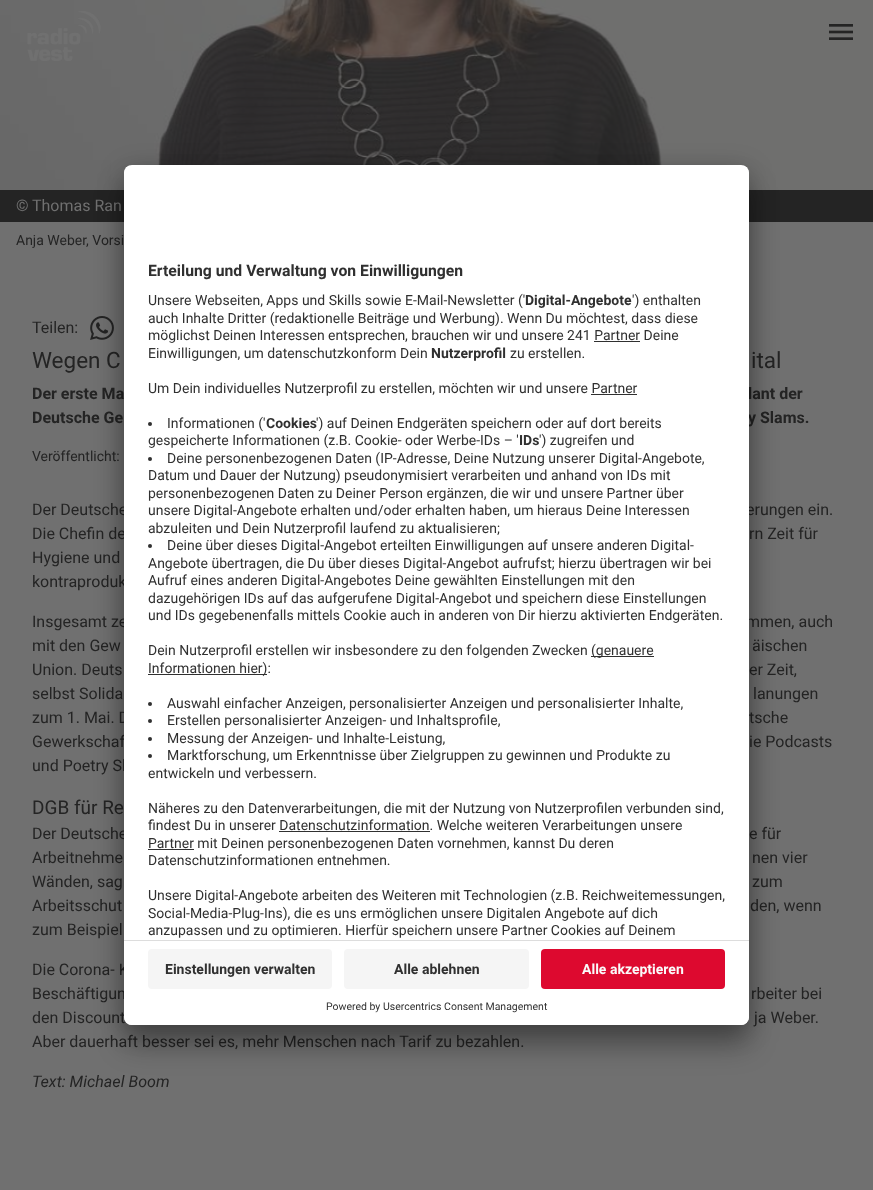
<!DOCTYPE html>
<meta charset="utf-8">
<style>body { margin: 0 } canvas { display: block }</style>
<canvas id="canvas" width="873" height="1190"></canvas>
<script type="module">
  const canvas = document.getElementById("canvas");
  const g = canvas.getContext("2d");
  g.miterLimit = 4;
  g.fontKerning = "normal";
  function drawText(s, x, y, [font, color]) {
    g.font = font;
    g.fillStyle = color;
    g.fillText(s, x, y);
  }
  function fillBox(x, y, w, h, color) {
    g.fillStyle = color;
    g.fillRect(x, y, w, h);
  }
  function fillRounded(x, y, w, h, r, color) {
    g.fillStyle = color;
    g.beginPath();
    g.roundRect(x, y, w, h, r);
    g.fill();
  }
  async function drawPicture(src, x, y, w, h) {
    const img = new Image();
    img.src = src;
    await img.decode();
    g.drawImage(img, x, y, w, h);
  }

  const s1 = ["16px Roboto", "#707070"];
  const s2 = ["14px Roboto", "#242424"];
  const s3 = ["16px Roboto", "#242424"];
  const s4 = ["22.5px Roboto", "#242424"];
  const s5 = ["bold 16px Roboto", "#242424"];
  const s6 = ["19px Roboto", "#242424"];
  const s7 = ["italic 16px Roboto", "#242424"];
  const s8 = ["bold 15.75px Roboto", "#303030"];
  const s9 = ["14px Roboto", "#303030"];
  const s10 = ["bold 14px Roboto", "#303030"];
  const s11 = ["bold 14px Roboto", "#FAFAFA"];
  const s12 = ["10.5px Roboto", "#303030"];

  fillBox(0, 0, 873, 1190, "#707070");
  await drawPicture("pic3.png", 0, 0, 873, 190);
  await drawPicture("pic1.png", 27, 11, 74, 50);
  await drawPicture("pic2.png", 829, 24, 24, 16);
  fillBox(0, 190, 873, 32, "#242424");
  drawText("©", 16, 211, s1);
  drawText("Thomas Ran", 32, 211, s1);
  drawText("Anja Weber, Vorsi", 16, 245, s2);
  drawText("Teilen:", 32, 333, s3);
  await drawPicture("pic4.png", 90, 316, 24, 24);
  drawText("Wegen C", 32, 368, s4);
  drawText("ital", 751, 368, s4);
  drawText("Der erste Ma", 32, 399, s5);
  drawText("lant der", 748, 399, s5);
  drawText("Deutsche Ge", 32, 423, s5);
  drawText("y Slams.", 748, 423, s5);
  drawText("Veröffentlicht:", 32, 461, s2);
  drawText("Der Deutsche", 32, 515, s3);
  drawText("erungen ein.", 746, 515, s3);
  drawText("Die Chefin de", 32, 539, s3);
  drawText("rn Zeit für", 749, 539, s3);
  drawText("Hygiene und", 32, 563, s3);
  drawText("kontraproduk", 32, 587, s3);
  drawText("Insgesamt ze", 32, 627, s3);
  drawText("mmen, auch", 746, 627, s3);
  drawText("mit den Gew", 32, 651, s3);
  drawText("äischen", 752, 651, s3);
  drawText("Union. Deuts", 32, 675, s3);
  drawText("er Zeit,", 749, 675, s3);
  drawText("selbst Solida", 32, 699, s3);
  drawText("lanungen", 753, 699, s3);
  drawText("zum 1. Mai. D", 32, 723, s3);
  drawText("tsche", 749, 723, s3);
  drawText("Gewerkschaf", 32, 747, s3);
  drawText("ie Podcasts", 749, 747, s3);
  drawText("und Poetry Sl", 32, 771, s3);
  drawText("DGB für Re", 32, 814, s6);
  drawText("Der Deutsche", 32, 839, s3);
  drawText("e für", 749, 839, s3);
  drawText("Arbeitnehme", 32, 863, s3);
  drawText("nen vier", 752, 863, s3);
  drawText("Wänden, sag", 32, 887, s3);
  drawText("zum", 752, 887, s3);
  drawText("Arbeitsschut", 32, 911, s3);
  drawText("den, wenn", 750, 911, s3);
  drawText("zum Beispiel", 32, 935, s3);
  drawText("Die Corona- K", 32, 975, s3);
  drawText("Beschäftigun", 32, 999, s3);
  drawText("rbeiter bei", 751, 999, s3);
  drawText("den Discount", 32, 1023, s3);
  drawText("ja Weber.", 754, 1023, s3);
  drawText("Aber dauerhaft besser sei es, mehr Menschen nach Tarif zu bezahlen.", 32, 1047, s3);
  drawText("Text: Michael Boom", 32, 1087, s7);
  g.fillStyle = "rgba(0, 0, 0, 0.3)";
  g.filter = "blur(14px)";
  g.beginPath();
  g.roundRect(124, 185, 625, 860, 8);
  g.fill();
  g.filter = "none";
  g.fillStyle = "rgba(0, 0, 0, 0.22)";
  g.filter = "blur(13px)";
  g.beginPath();
  g.roundRect(124, 170, 625, 860, 8);
  g.fill();
  g.filter = "none";
  fillRounded(124, 165, 625, 860, 8, "#FFFFFF");
  g.save();
  g.beginPath();
  g.roundRect(124, 165, 625, 860, 8);
  g.clip();
  g.beginPath();
  g.roundRect(124, 165, 625, 775, [8, 8, 0, 0]);
  g.clip();
  fillBox(124, 166, 625, 774, "#FFFFFF");
  g.restore();
  drawText("Erteilung und Verwaltung von Einwilligungen", 148, 276, s8);
  drawText("Unsere Webseiten, Apps und Skills sowie E-Mail-Newsletter ('", 148, 305, s9);
  drawText("Digital-Angebote", 525, 305, s10);
  drawText("') enthalten", 632, 305, s9);
  drawText("auch Inhalte Dritter (redaktionelle Beiträge und Werbung). Wenn Du möchtest, dass diese", 148, 323, s9);
  drawText("möglichst Deinen Interessen entsprechen, brauchen wir und unsere 241 Partner Deine", 148, 340, s9);
  fillBox(594, 341, 46, 1, "#303030");
  drawText("Einwilligungen, um datenschutzkonform Dein", 148, 358, s9);
  drawText("Nutzerprofil", 431, 358, s10);
  drawText("zu erstellen.", 510, 358, s9);
  drawText("Um Dein individuelles Nutzerprofil zu erstellen, möchten wir und unsere Partner", 148, 393, s9);
  fillBox(591, 394, 46, 1, "#303030");
  g.beginPath();
  g.arc(150, 424, 2, 0, Math.PI * 2);
  g.fill();
  drawText("Informationen ('", 167, 428, s9);
  drawText("Cookies", 266, 428, s10);
  drawText("') auf Deinen Endgeräten speichern oder auf dort bereits", 316, 428, s9);
  drawText("gespeicherte Informationen (z.B. Cookie- oder Werbe-IDs – '", 148, 445, s9);
  drawText("IDs", 519, 445, s10);
  drawText("') zugreifen und", 539, 445, s9);
  g.beginPath();
  g.arc(150, 459, 2, 0, Math.PI * 2);
  g.fill();
  drawText("Deine personenbezogenen Daten (IP-Adresse, Deine Nutzung unserer Digital-Angebote,", 167, 463, s9);
  drawText("Datum und Dauer der Nutzung) pseudonymisiert verarbeiten und anhand von IDs mit", 148, 480, s9);
  drawText("personenbezogenen Daten zu Deiner Person ergänzen, die wir und unsere Partner über", 148, 498, s9);
  drawText("unsere Digital-Angebote erhalten und/oder erhalten haben, um hieraus Deine Interessen", 148, 515, s9);
  drawText("abzuleiten und Dein Nutzerprofil laufend zu aktualisieren;", 148, 533, s9);
  g.beginPath();
  g.arc(150, 546, 2, 0, Math.PI * 2);
  g.fill();
  drawText("Deine über dieses Digital-Angebot erteilten Einwilligungen auf unsere anderen Digital-", 167, 550, s9);
  drawText("Angebote übertragen, die Du über dieses Digital-Angebot aufrufst; hierzu übertragen wir bei", 148, 568, s9);
  drawText("Aufruf eines anderen Digital-Angebotes Deine gewählten Einstellungen mit den", 148, 585, s9);
  drawText("dazugehörigen IDs auf das aufgerufene Digital-Angebot und speichern diese Einstellungen", 148, 603, s9);
  drawText("und IDs gegebenenfalls mittels Cookie auch in anderen von Dir hierzu aktivierten Endgeräten.", 148, 620, s9);
  drawText("Dein Nutzerprofil erstellen wir insbesondere zu den folgenden Zwecken", 148, 655, s9);
  fillBox(591, 656, 63, 1, "#303030");
  drawText("(genauere", 591, 655, s9);
  fillBox(148, 674, 119, 1, "#303030");
  drawText("Informationen hier):", 148, 673, s9);
  g.beginPath();
  g.arc(150, 704, 2, 0, Math.PI * 2);
  g.fill();
  drawText("Auswahl einfacher Anzeigen, personalisierter Anzeigen und personalisierter Inhalte,", 167, 708, s9);
  g.beginPath();
  g.arc(150, 721, 2, 0, Math.PI * 2);
  g.fill();
  drawText("Erstellen personalisierter Anzeigen- und Inhaltsprofile,", 167, 725, s9);
  g.beginPath();
  g.arc(150, 739, 2, 0, Math.PI * 2);
  g.fill();
  drawText("Messung der Anzeigen- und Inhalte-Leistung,", 167, 743, s9);
  g.beginPath();
  g.arc(150, 756, 2, 0, Math.PI * 2);
  g.fill();
  drawText("Marktforschung, um Erkenntnisse über Zielgruppen zu gewinnen und Produkte zu", 167, 760, s9);
  drawText("entwickeln und verbessern.", 148, 778, s9);
  drawText("Näheres zu den Datenverarbeitungen, die mit der Nutzung von Nutzerprofilen verbunden sind,", 148, 813, s9);
  drawText("findest Du in unserer Datenschutzinformation. Welche weiteren Verarbeitungen unsere", 148, 830, s9);
  fillBox(279, 831, 151, 1, "#303030");
  fillBox(148, 849, 46, 1, "#303030");
  drawText("Partner mit Deinen personenbezogenen Daten vornehmen, kannst Du deren", 148, 848, s9);
  drawText("Datenschutzinformationen entnehmen.", 148, 865, s9);
  drawText("Unsere Digital-Angebote arbeiten des Weiteren mit Technologien (z.B. Reichweitemessungen,", 148, 900, s9);
  drawText("Social-Media-Plug-Ins), die es uns ermöglichen unsere Digitalen Angebote auf dich", 148, 918, s9);
  drawText("anzupassen und zu optimieren. Hierfür speichern unsere Partner Cookies auf Deinem", 148, 935, s9);
  g.fillStyle = "#FFFFFF";
  g.beginPath();
  g.roundRect(124, 940, 625, 85, [0, 0, 8, 8]);
  g.fill();
  fillBox(124, 940, 625, 1, "#DDDDDD");
  fillRounded(148, 949, 184, 40, 4, "#F5F5F5");
  drawText("Einstellungen verwalten", 165, 974, s10);
  fillRounded(344, 949, 185, 40, 4, "#F5F5F5");
  drawText("Alle ablehnen", 394, 974, s10);
  fillRounded(541, 949, 184, 40, 4, "#DD092F");
  drawText("Alle akzeptieren", 582, 974, s11);
  drawText("Powered by Usercentrics Consent Management", 326, 1010, s12);
</script>
